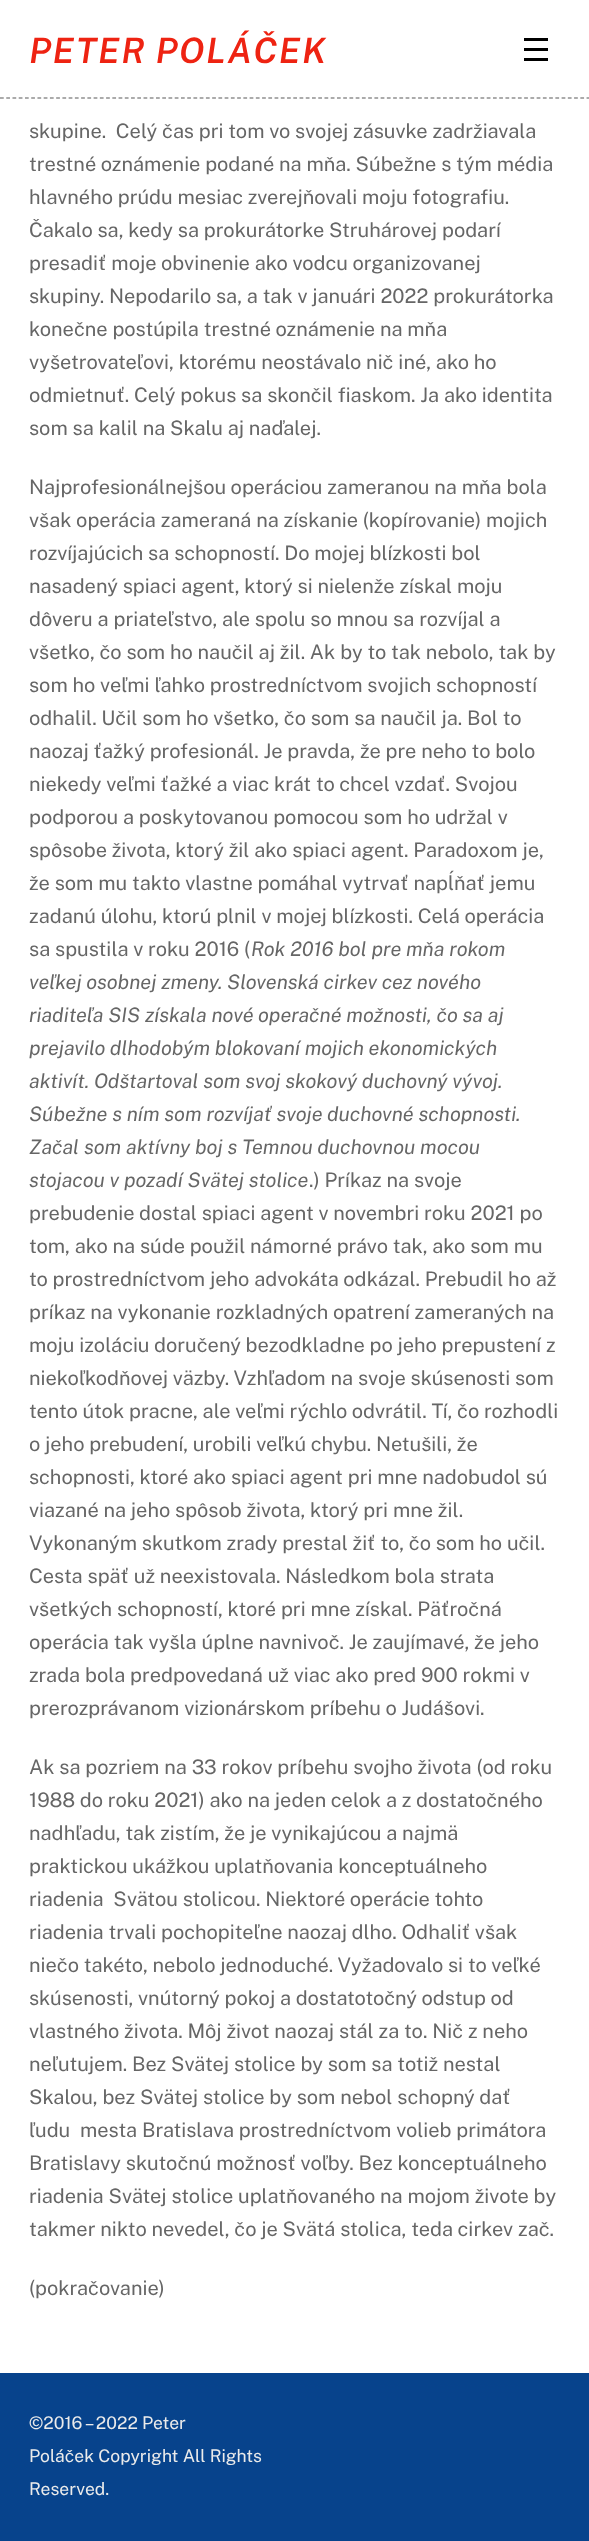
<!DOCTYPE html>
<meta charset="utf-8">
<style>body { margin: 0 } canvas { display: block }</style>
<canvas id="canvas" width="589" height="2541"></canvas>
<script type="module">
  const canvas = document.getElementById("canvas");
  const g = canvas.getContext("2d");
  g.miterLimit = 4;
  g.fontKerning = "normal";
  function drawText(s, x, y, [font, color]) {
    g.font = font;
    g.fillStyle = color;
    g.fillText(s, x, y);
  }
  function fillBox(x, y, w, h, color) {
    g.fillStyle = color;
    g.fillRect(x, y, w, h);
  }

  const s1 = ["italic 600 35px Public Sans", "#EE2312"];
  const s2 = ["20px Public Sans", "#666666"];
  const s3 = ["italic 20px Public Sans", "#666666"];
  const s4 = ["17.5px Public Sans", "#EBEBEB"];

  fillBox(0, 0, 589, 2541, "#FFFFFF");
  g.beginPath();
  g.moveTo(0, 98);
  g.lineTo(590, 98);
  g.strokeStyle = "#595959";
  g.lineWidth = 1.2;
  g.setLineDash([3.75, 2.49]);
  g.stroke();
  g.letterSpacing = "1.4px";
  drawText("PETER POLÁČEK", 29, 63, s1);
  fillBox(524, 58, 24, 3, "#000000");
  fillBox(524, 38, 24, 3, "#000000");
  fillBox(524, 48, 24, 3, "#000000");
  g.letterSpacing = "0px";
  drawText("skupine.  Celý čas pri tom vo svojej zásuvke zadržiavala", 29, 138, s2);
  drawText("trestné oznámenie podané na mňa. Súbežne s tým média", 29, 171, s2);
  drawText("hlavného prúdu mesiac zverejňovali moju fotografiu.", 29, 204, s2);
  drawText("Čakalo sa, kedy sa prokurátorke Struhárovej podarí", 29, 237, s2);
  drawText("presadiť moje obvinenie ako vodcu organizovanej", 29, 270, s2);
  drawText("skupiny. Nepodarilo sa, a tak v januári 2022 prokurátorka", 29, 303, s2);
  drawText("konečne postúpila trestné oznámenie na mňa", 29, 336, s2);
  drawText("vyšetrovateľovi, ktorému neostávalo nič iné, ako ho", 29, 369, s2);
  drawText("odmietnuť. Celý pokus sa skončil fiaskom. Ja ako identita", 29, 402, s2);
  drawText("som sa kalil na Skalu aj naďalej.", 29, 435, s2);
  drawText("Najprofesionálnejšou operáciou zameranou na mňa bola", 29, 494, s2);
  drawText("však operácia zameraná na získanie (kopírovanie) mojich", 29, 527, s2);
  drawText("rozvíjajúcich sa schopností. Do mojej blízkosti bol", 29, 560, s2);
  drawText("nasadený spiaci agent, ktorý si nielenže získal moju", 29, 593, s2);
  drawText("dôveru a priateľstvo, ale spolu so mnou sa rozvíjal a", 29, 626, s2);
  drawText("všetko, čo som ho naučil aj žil. Ak by to tak nebolo, tak by", 29, 659, s2);
  drawText("som ho veľmi ľahko prostredníctvom svojich schopností", 29, 692, s2);
  drawText("odhalil. Učil som ho všetko, čo som sa naučil ja. Bol to", 29, 725, s2);
  drawText("naozaj ťažký profesionál. Je pravda, že pre neho to bolo", 29, 758, s2);
  drawText("niekedy veľmi ťažké a viac krát to chcel vzdať. Svojou", 29, 791, s2);
  drawText("podporou a poskytovanou pomocou som ho udržal v", 29, 824, s2);
  drawText("spôsobe života, ktorý žil ako spiaci agent. Paradoxom je,", 29, 857, s2);
  drawText("že som mu takto vlastne pomáhal vytrvať napĺňať jemu", 29, 890, s2);
  drawText("zadanú úlohu, ktorú plnil v mojej blízkosti. Celá operácia", 29, 923, s2);
  drawText("sa spustila v roku 2016 (", 29, 956, s2);
  drawText("Rok 2016 bol pre mňa rokom", 251, 956, s3);
  drawText("veľkej osobnej zmeny. Slovenská cirkev cez nového", 29, 989, s3);
  drawText("riaditeľa SIS získala nové operačné možnosti, čo sa aj", 29, 1022, s3);
  drawText("prejavilo dlhodobým blokovaní mojich ekonomických", 29, 1055, s3);
  drawText("aktivít. Odštartoval som svoj skokový duchovný vývoj.", 29, 1088, s3);
  drawText("Súbežne s ním som rozvíjať svoje duchovné schopnosti.", 29, 1121, s3);
  drawText("Začal som aktívny boj s Temnou duchovnou mocou", 29, 1154, s3);
  drawText("stojacou v pozadí Svätej stolice", 29, 1187, s3);
  drawText(".) Príkaz na svoje", 309, 1187, s2);
  drawText("prebudenie dostal spiaci agent v novembri roku 2021 po", 29, 1220, s2);
  drawText("tom, ako na súde použil námorné právo tak, ako som mu", 29, 1253, s2);
  drawText("to prostredníctvom jeho advokáta odkázal. Prebudil ho až", 29, 1286, s2);
  drawText("príkaz na vykonanie rozkladných opatrení zameraných na", 29, 1319, s2);
  drawText("moju izoláciu doručený bezodkladne po jeho prepustení z", 29, 1352, s2);
  drawText("niekoľkodňovej väzby. Vzhľadom na svoje skúsenosti som", 29, 1385, s2);
  drawText("tento útok pracne, ale veľmi rýchlo odvrátil. Tí, čo rozhodli", 29, 1418, s2);
  drawText("o jeho prebudení, urobili veľkú chybu. Netušili, že", 29, 1451, s2);
  drawText("schopnosti, ktoré ako spiaci agent pri mne nadobudol sú", 29, 1484, s2);
  drawText("viazané na jeho spôsob života, ktorý pri mne žil.", 29, 1517, s2);
  drawText("Vykonaným skutkom zrady prestal žiť to, čo som ho učil.", 29, 1550, s2);
  drawText("Cesta späť už neexistovala. Následkom bola strata", 29, 1583, s2);
  drawText("všetkých schopností, ktoré pri mne získal. Päťročná", 29, 1616, s2);
  drawText("operácia tak vyšla úplne navnivoč. Je zaujímavé, že jeho", 29, 1649, s2);
  drawText("zrada bola predpovedaná už viac ako pred 900 rokmi v", 29, 1682, s2);
  drawText("prerozprávanom vizionárskom príbehu o Judášovi.", 29, 1715, s2);
  drawText("Ak sa pozriem na 33 rokov príbehu svojho života (od roku", 29, 1774, s2);
  drawText("1988 do roku 2021) ako na jeden celok a z dostatočného", 29, 1807, s2);
  drawText("nadhľadu, tak zistím, že je vynikajúcou a najmä", 29, 1840, s2);
  drawText("praktickou ukážkou uplatňovania konceptuálneho", 29, 1873, s2);
  drawText("riadenia  Svätou stolicou. Niektoré operácie tohto", 29, 1906, s2);
  drawText("riadenia trvali pochopiteľne naozaj dlho. Odhaliť však", 29, 1939, s2);
  drawText("niečo takéto, nebolo jednoduché. Vyžadovalo si to veľké", 29, 1972, s2);
  drawText("skúsenosti, vnútorný pokoj a dostatotočný odstup od", 29, 2005, s2);
  drawText("vlastného života. Môj život naozaj stál za to. Nič z neho", 29, 2038, s2);
  drawText("neľutujem. Bez Svätej stolice by som sa totiž nestal", 29, 2071, s2);
  drawText("Skalou, bez Svätej stolice by som nebol schopný dať", 29, 2104, s2);
  drawText("ľudu  mesta Bratislava prostredníctvom volieb primátora", 29, 2137, s2);
  drawText("Bratislavy skutočnú možnosť voľby. Bez konceptuálneho", 29, 2170, s2);
  drawText("riadenia Svätej stolice uplatňovaného na mojom živote by", 29, 2203, s2);
  drawText("takmer nikto nevedel, čo je Svätá stolica, teda cirkev zač.", 29, 2236, s2);
  drawText("(pokračovanie)", 29, 2295, s2);
  fillBox(0, 2373, 589, 168, "#07438C");
  drawText("©2016 – 2022 Peter", 29, 2429, s4);
  drawText("Poláček Copyright All Rights", 29, 2462, s4);
  drawText("Reserved.", 29, 2495, s4);
</script>
